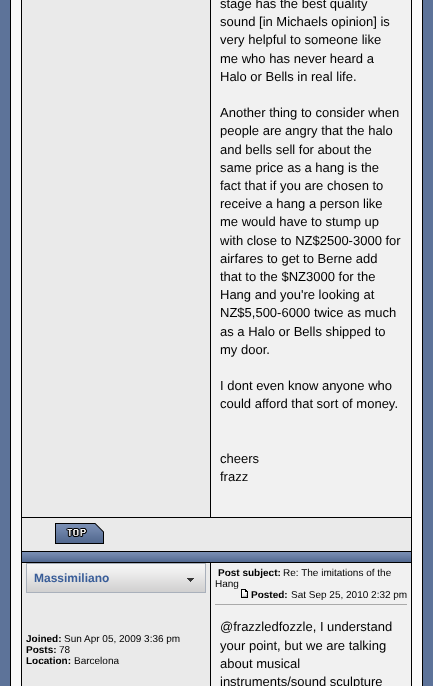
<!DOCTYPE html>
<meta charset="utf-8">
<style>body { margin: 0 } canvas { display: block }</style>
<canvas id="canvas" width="433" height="686"></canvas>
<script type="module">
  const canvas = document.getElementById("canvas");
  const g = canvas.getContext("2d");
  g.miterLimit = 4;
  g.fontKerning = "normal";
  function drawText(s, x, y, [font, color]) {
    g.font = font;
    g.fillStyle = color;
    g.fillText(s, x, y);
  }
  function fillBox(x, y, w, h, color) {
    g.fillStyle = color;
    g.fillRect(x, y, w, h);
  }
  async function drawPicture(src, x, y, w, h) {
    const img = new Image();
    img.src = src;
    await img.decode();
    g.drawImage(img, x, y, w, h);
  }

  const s1 = ["13px Liberation Sans", "#000000"];
  const s2 = ["bold 12px Liberation Sans", "#395D98"];
  const s3 = ["bold 10px Liberation Sans", "#000000"];
  const s4 = ["10px Liberation Sans", "#000000"];

  fillBox(0, 0, 433, 686, "#5D7399");
  g.fillStyle = "#FAFAFA";
  g.beginPath();
  g.rect(10.5, -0.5, 412, 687);
  g.fill();
  g.strokeStyle = "#000000";
  g.stroke();
  fillBox(411, 0, 1, 686, "#000000");
  fillBox(21, 562, 391, 1, "#000000");
  fillBox(21, 0, 1, 686, "#000000");
  fillBox(211, 0, 200, 517, "#F1F1F1");
  fillBox(22, 0, 188, 517, "#EAEAEA");
  fillBox(210, 0, 1, 517, "#000000");
  drawText("stage has the best quality", 220, 8, s1);
  drawText("sound [in Michaels opinion] is", 220, 26, s1);
  drawText("very helpful to someone like", 220, 44, s1);
  drawText("me who has never heard a", 220, 63, s1);
  drawText("Halo or Bells in real life.", 220, 81, s1);
  drawText("Another thing to consider when", 220, 117, s1);
  drawText("people are angry that the halo", 220, 135, s1);
  drawText("and bells sell for about the", 220, 154, s1);
  drawText("same price as a hang is the", 220, 172, s1);
  drawText("fact that if you are chosen to", 220, 190, s1);
  drawText("receive a hang a person like", 220, 208, s1);
  drawText("me would have to stump up", 220, 226, s1);
  drawText("with close to NZ$2500-3000 for", 220, 245, s1);
  drawText("airfares to get to Berne add", 220, 263, s1);
  drawText("that to the $NZ3000 for the", 220, 281, s1);
  drawText("Hang and you're looking at", 220, 299, s1);
  drawText("NZ$5,500-6000 twice as much", 220, 317, s1);
  drawText("as a Halo or Bells shipped to", 220, 336, s1);
  drawText("my door.", 220, 354, s1);
  drawText("I dont even know anyone who", 220, 390, s1);
  drawText("could afford that sort of money.", 220, 408, s1);
  drawText("cheers", 220, 463, s1);
  drawText("frazz", 220, 481, s1);
  fillBox(22, 518, 389, 33, "#EAEAEA");
  fillBox(22, 517, 389, 1, "#000000");
  await drawPicture("pic1.png", 55, 523, 49, 21);
  await drawPicture("pic2.png", 22, 551, 389, 11);
  fillBox(211, 563, 200, 123, "#F1F1F1");
  fillBox(22, 563, 188, 123, "#EAEAEA");
  fillBox(210, 563, 1, 123, "#000000");
  await drawPicture("pic3.png", 27, 564, 178, 28);
  g.strokeStyle = "#A9B0BB";
  g.strokeRect(26.5, 563.5, 179, 29);
  drawText("Massimiliano", 34, 582, s2);
  drawText("Post subject:", 218, 576, s3);
  drawText("Re: The imitations of the", 283, 576, s4);
  drawText("Hang", 215, 587, s4);
  await drawPicture("pic4.png", 241, 589, 7, 9);
  drawText("Posted:", 251, 598, s3);
  drawText("Sat Sep 25, 2010 2:32 pm", 291, 598, s4);
  fillBox(215, 604, 192, 1, "#AAAAAA");
  drawText("Joined:", 26, 642, s3);
  drawText("Sun Apr 05, 2009 3:36 pm", 64, 642, s4);
  drawText("Posts:", 26, 653, s3);
  drawText("78", 59, 653, s4);
  drawText("Location:", 26, 664, s3);
  drawText("Barcelona", 74, 664, s4);
  drawText("@frazzledfozzle, I understand", 220, 631, s1);
  drawText("your point, but we are talking", 220, 650, s1);
  drawText("about musical", 220, 668, s1);
  drawText("instruments/sound sculpture", 220, 686, s1);
</script>
